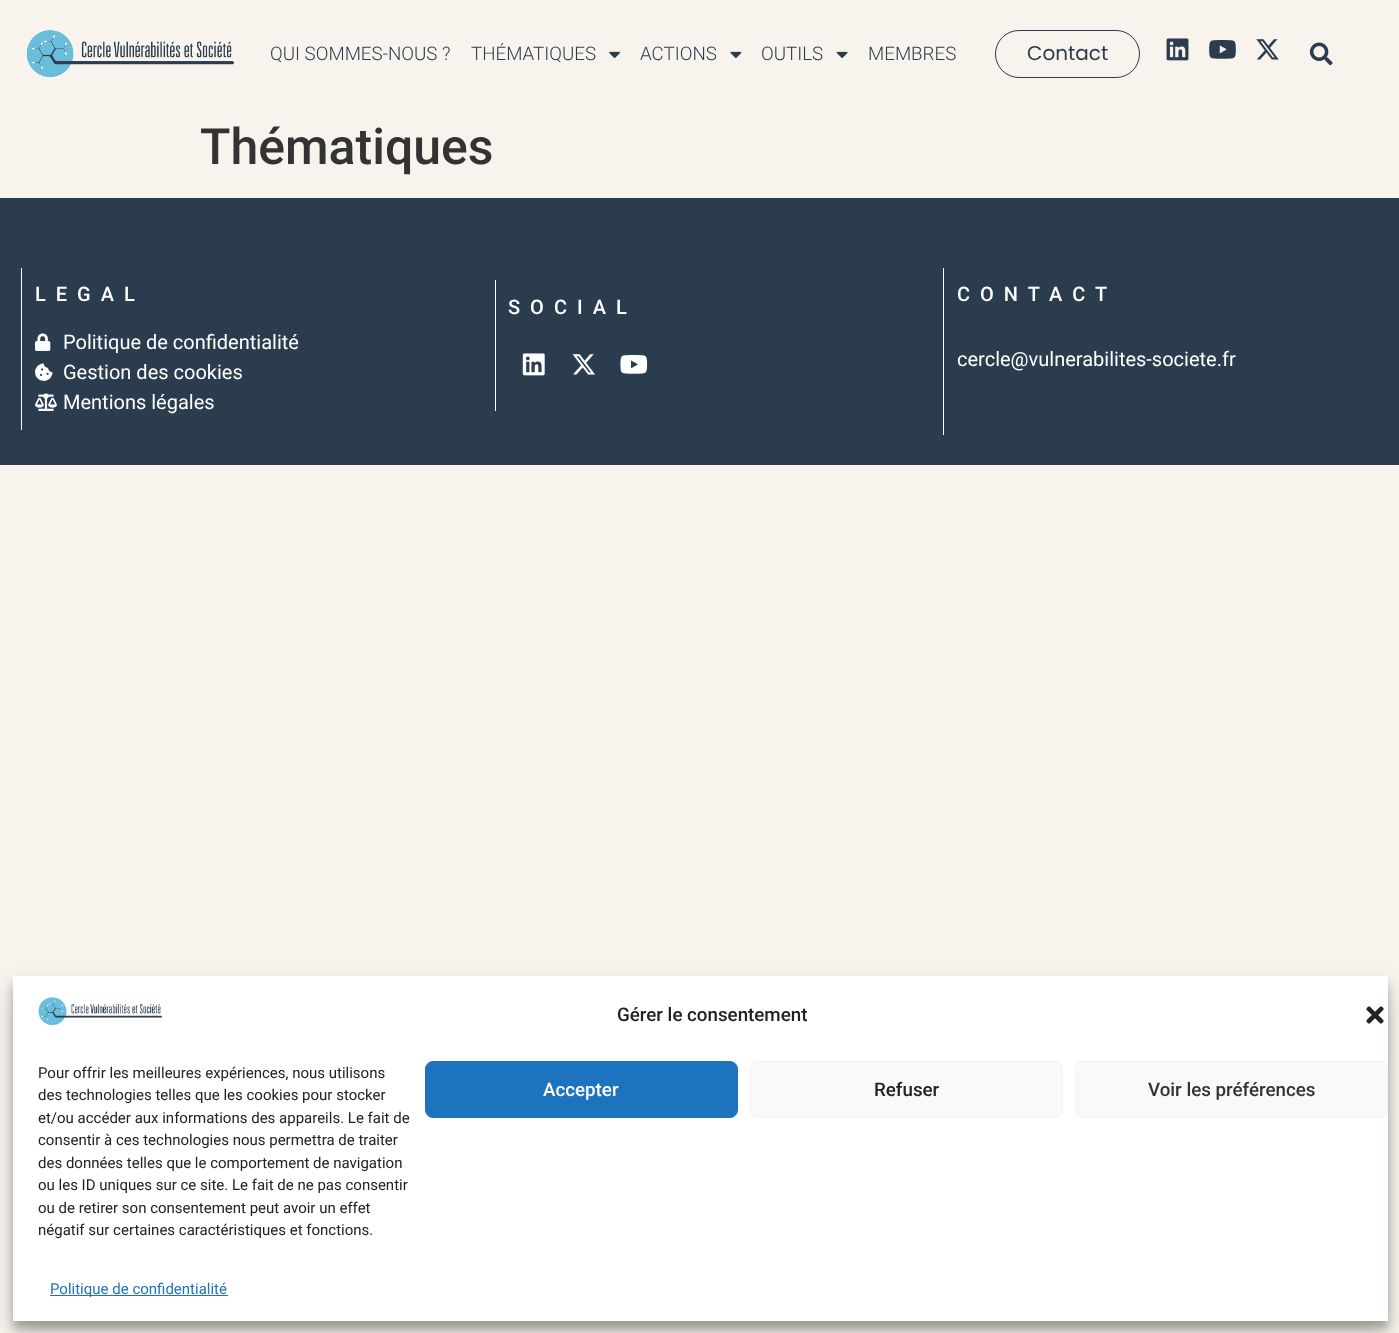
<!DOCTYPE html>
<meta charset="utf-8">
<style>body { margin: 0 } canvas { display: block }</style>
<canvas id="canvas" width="1399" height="1333"></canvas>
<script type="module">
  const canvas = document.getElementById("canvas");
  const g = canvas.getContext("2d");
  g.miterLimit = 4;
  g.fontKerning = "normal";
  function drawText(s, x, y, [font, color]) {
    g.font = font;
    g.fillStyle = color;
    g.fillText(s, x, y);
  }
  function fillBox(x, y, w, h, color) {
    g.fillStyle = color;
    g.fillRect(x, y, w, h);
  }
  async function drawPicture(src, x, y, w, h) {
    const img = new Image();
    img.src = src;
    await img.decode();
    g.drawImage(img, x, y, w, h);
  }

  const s1 = ["300 18.75px Roboto", "#2A3C4E"];
  const s2 = ["20px Poppins", "#2A3C4E"];
  const s3 = ["500 50px Roboto", "#333333"];
  const s4 = ["500 20px Roboto", "#FFFFFF"];
  const s5 = ["20px Roboto", "#FFFFFF"];
  const s6 = ["500 18.75px Roboto", "#222222"];
  const s7 = ["15px Roboto", "#222222"];
  const s8 = ["500 18.75px Roboto", "#FFFFFF"];
  const s9 = ["500 18.75px Roboto", "#333333"];
  const s10 = ["15px Roboto", "#1E73BE"];

  fillBox(0, 0, 1399, 1333, "#F8F4ED");
  await drawPicture("pic1.png", 26, 29, 208, 49);
  drawText("QUI SOMMES-NOUS ?", 270, 60, s1);
  drawText("THÉMATIQUES", 471, 60, s1);
  await drawPicture("pic2.png", 609, 51, 11, 7);
  drawText("ACTIONS", 640, 60, s1);
  await drawPicture("pic3.png", 730, 51, 12, 7);
  drawText("OUTILS", 761, 60, s1);
  await drawPicture("pic4.png", 836, 51, 12, 7);
  drawText("MEMBRES", 868, 60, s1);
  g.beginPath();
  g.roundRect(995.5, 30.5, 144, 47, 23.5);
  g.strokeStyle = "#2A3C4E";
  g.stroke();
  drawText("Contact", 1027, 60, s2);
  await drawPicture("pic5.png", 1166, 38, 23, 23);
  await drawPicture("pic6.png", 1209, 40, 27, 19);
  await drawPicture("pic7.png", 1256, 39, 23, 21);
  await drawPicture("pic8.png", 1309, 42, 24, 24);
  drawText("Thématiques", 200, 164, s3);
  fillBox(0, 198, 1399, 267, "#2A3C4E");
  fillBox(21, 268, 1, 162, "#FFFFFF");
  g.letterSpacing = "10px";
  drawText("LEGAL", 35, 301, s4);
  await drawPicture("pic9.png", 35, 333, 16, 18);
  g.letterSpacing = "0px";
  drawText("Politique de confidentialité", 63, 349, s5);
  await drawPicture("pic10.png", 35, 363, 18, 18);
  drawText("Gestion des cookies", 63, 379, s5);
  await drawPicture("pic11.png", 35, 393, 22, 18);
  drawText("Mentions légales", 63, 409, s5);
  fillBox(495, 280, 1, 131, "#FFFFFF");
  g.letterSpacing = "10px";
  drawText("SOCIAL", 508, 314, s4);
  await drawPicture("pic12.png", 522, 353, 23, 23);
  await drawPicture("pic13.png", 572, 354, 23, 21);
  await drawPicture("pic14.png", 620, 355, 28, 19);
  fillBox(943, 268, 1, 167, "#FFFFFF");
  drawText("CONTACT", 957, 301, s4);
  g.letterSpacing = "0px";
  drawText("cercle@vulnerabilites-societe.fr", 957, 366, s5);
  g.fillStyle = "rgba(0, 0, 0, 0.23)";
  g.filter = "blur(4px)";
  g.beginPath();
  g.rect(13, 984, 1375, 345);
  g.fill();
  g.filter = "none";
  g.fillStyle = "rgba(0, 0, 0, 0.19)";
  g.filter = "blur(12.5px)";
  g.beginPath();
  g.rect(13, 989, 1375, 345);
  g.fill();
  g.filter = "none";
  fillBox(13, 976, 1375, 345, "#FFFFFF");
  await drawPicture("pic15.png", 38, 997, 124, 29);
  drawText("Gérer le consentement", 617, 1021, s6);
  await drawPicture("pic16.png", 1366, 1006, 18, 18);
  drawText("Pour offrir les meilleures expériences, nous utilisons", 38, 1078, s7);
  drawText("des technologies telles que les cookies pour stocker", 38, 1100, s7);
  drawText("et/ou accéder aux informations des appareils. Le fait de", 38, 1123, s7);
  drawText("consentir à ces technologies nous permettra de traiter", 38, 1145, s7);
  drawText("des données telles que le comportement de navigation", 38, 1168, s7);
  drawText("ou les ID uniques sur ce site. Le fait de ne pas consentir", 38, 1190, s7);
  drawText("ou de retirer son consentement peut avoir un effet", 38, 1213, s7);
  drawText("négatif sur certaines caractéristiques et fonctions.", 38, 1235, s7);
  g.fillStyle = "#1E73BE";
  g.beginPath();
  g.roundRect(425.5, 1061.5, 312, 56, 7.5);
  g.fill();
  g.strokeStyle = "#1E73BE";
  g.stroke();
  drawText("Accepter", 543, 1096, s8);
  g.fillStyle = "#F9F9F9";
  g.beginPath();
  g.roundRect(750.5, 1061.5, 312, 56, 7.5);
  g.fill();
  g.strokeStyle = "#F2F2F2";
  g.stroke();
  drawText("Refuser", 874, 1096, s6);
  g.fillStyle = "#F9F9F9";
  g.beginPath();
  g.roundRect(1075.5, 1061.5, 312, 56, 7.5);
  g.fill();
  g.stroke();
  drawText("Voir les préférences", 1148, 1096, s9);
  fillBox(50, 1295, 178, 1, "#1E73BE");
  drawText("Politique de confidentialité", 50, 1294, s10);
</script>
